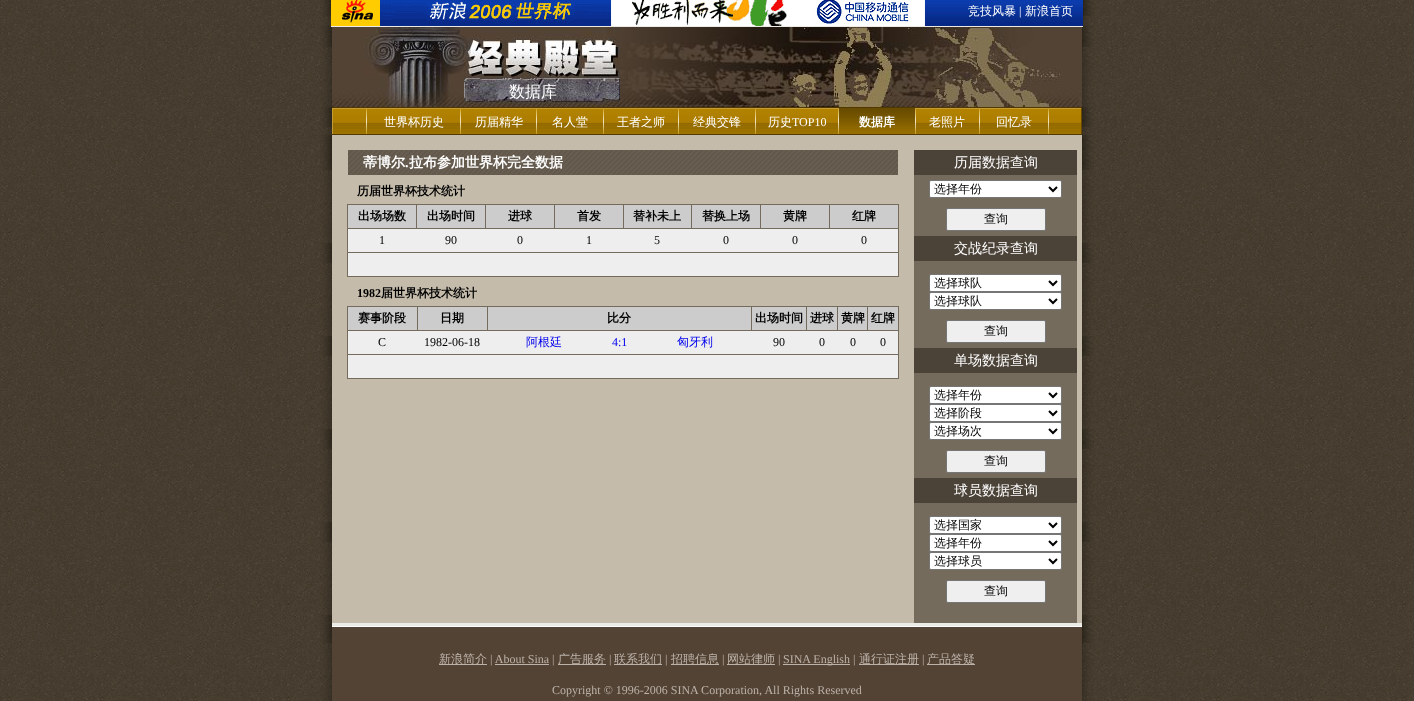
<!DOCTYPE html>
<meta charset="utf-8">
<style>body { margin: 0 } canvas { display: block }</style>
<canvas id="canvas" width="1414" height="701"></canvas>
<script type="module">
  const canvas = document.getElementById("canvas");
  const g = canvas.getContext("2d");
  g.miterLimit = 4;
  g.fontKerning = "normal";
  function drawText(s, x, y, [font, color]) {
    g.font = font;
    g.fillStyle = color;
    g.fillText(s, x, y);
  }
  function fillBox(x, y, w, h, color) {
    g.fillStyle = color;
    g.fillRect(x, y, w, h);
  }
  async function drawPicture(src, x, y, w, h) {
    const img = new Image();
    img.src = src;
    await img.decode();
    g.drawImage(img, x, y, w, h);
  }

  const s1 = ["500 12px WenQuanYi Zen Hei", "#FFFFFF"];
  const s2 = ["12px Liberation Serif", "#FFFFFF"];
  const s3 = ["500 16px WenQuanYi Zen Hei", "#FFFFFF"];
  const s4 = ["bold 12px WenQuanYi Zen Hei", "#FFFFFF"];
  const s5 = ["bold 14px WenQuanYi Zen Hei", "#FFFFFF"];
  const s6 = ["bold 14px Liberation Serif", "#FFFFFF"];
  const s7 = ["bold 12px WenQuanYi Zen Hei", "#000000"];
  const s8 = ["12px Liberation Serif", "#000000"];
  const s9 = ["bold 12px Liberation Serif", "#000000"];
  const s10 = ["500 12px WenQuanYi Zen Hei", "#0000EE"];
  const s11 = ["12px Liberation Serif", "#0000EE"];
  const s12 = ["500 14px WenQuanYi Zen Hei", "#FFFFFF"];
  const s13 = ["500 12px WenQuanYi Zen Hei", "#000000"];
  const s14 = ["500 12px WenQuanYi Zen Hei", "#BCB2A9"];
  const s15 = ["12px Liberation Serif", "#BCB2A9"];

  fillBox(0, 0, 1414, 701, "#FFFFFF");
  await drawPicture("pic1.png", 0, 0, 1414, 701);
  await drawPicture("pic2.png", 925, 0, 158, 26);
  await drawPicture("pic3.png", 317, 0, 14, 26);
  await drawPicture("pic4.png", 331, 0, 49, 26);
  await drawPicture("pic5.png", 380, 0, 545, 26);
  drawText("竞技风暴", 968, 15, s1);
  drawText("|", 1019, 15, s2);
  drawText("新浪首页", 1025, 15, s1);
  await drawPicture("pic6.png", 1083, 0, 14, 26);
  await drawPicture("pic7.png", 317, 26, 14, 1);
  fillBox(331, 26, 752, 1, "#ECEBE6");
  await drawPicture("pic8.png", 1083, 26, 14, 1);
  await drawPicture("pic9.png", 317, 27, 15, 80);
  await drawPicture("pic10.png", 332, 27, 132, 80);
  await drawPicture("pic11.png", 464, 27, 156, 80);
  drawText("数据库", 509, 97, s3);
  await drawPicture("pic12.png", 620, 27, 462, 80);
  await drawPicture("pic13.png", 1082, 27, 15, 80);
  await drawPicture("pic14.png", 317, 107, 15, 28);
  await drawPicture("pic15.png", 333, 108, 748, 26);
  fillBox(332, 107, 750, 1, "#513800");
  fillBox(332, 134, 750, 1, "#513800");
  fillBox(332, 108, 1, 26, "#C39C33");
  await drawPicture("pic16.png", 366, 109, 1, 25);
  drawText("世界杯历史", 384, 126, s1);
  await drawPicture("pic16.png", 460, 109, 1, 25);
  drawText("历届精华", 475, 126, s1);
  await drawPicture("pic16.png", 536, 109, 1, 25);
  drawText("名人堂", 552, 126, s1);
  await drawPicture("pic16.png", 603, 109, 1, 25);
  drawText("王者之师", 617, 126, s1);
  await drawPicture("pic16.png", 678, 109, 1, 25);
  drawText("经典交锋", 693, 126, s1);
  await drawPicture("pic16.png", 755, 109, 1, 25);
  drawText("历史", 768, 126, s1);
  drawText("TOP10", 792, 126, s2);
  await drawPicture("pic16.png", 838, 109, 1, 25);
  await drawPicture("pic17.png", 839, 108, 76, 26);
  drawText("数据库", 859, 126, s4);
  await drawPicture("pic16.png", 915, 109, 1, 25);
  drawText("老照片", 929, 126, s1);
  await drawPicture("pic16.png", 979, 109, 1, 25);
  drawText("回忆录", 996, 126, s1);
  await drawPicture("pic16.png", 1048, 109, 1, 25);
  fillBox(1081, 108, 1, 26, "#6B4A00");
  await drawPicture("pic18.png", 1082, 107, 15, 28);
  await drawPicture("pic19.png", 317, 135, 15, 15);
  fillBox(332, 135, 750, 488, "#C4BBAB");
  await drawPicture("pic20.png", 1082, 135, 15, 15);
  await drawPicture("pic21.png", 317, 150, 15, 473);
  await drawPicture("pic22.png", 348, 150, 550, 25);
  drawText("蒂博尔", 363, 167, s5);
  drawText(".", 405, 167, s6);
  drawText("拉布参加世界杯完全数据", 409, 167, s5);
  drawText("历届世界杯技术统计", 357, 195, s7);
  fillBox(347, 204, 552, 73, "#756B5C");
  fillBox(348, 205, 68, 23, "#CCCCCC");
  drawText("出场场数", 358, 220, s7);
  fillBox(417, 205, 68, 23, "#CCCCCC");
  drawText("出场时间", 427, 220, s7);
  fillBox(486, 205, 68, 23, "#CCCCCC");
  drawText("进球", 508, 220, s7);
  fillBox(555, 205, 68, 23, "#CCCCCC");
  drawText("首发", 577, 220, s7);
  fillBox(624, 205, 67, 23, "#CCCCCC");
  drawText("替补未上", 633, 220, s7);
  fillBox(692, 205, 68, 23, "#CCCCCC");
  drawText("替换上场", 702, 220, s7);
  fillBox(761, 205, 68, 23, "#CCCCCC");
  drawText("黄牌", 783, 220, s7);
  fillBox(830, 205, 68, 23, "#CCCCCC");
  drawText("红牌", 852, 220, s7);
  fillBox(348, 229, 550, 23, "#EEEEEE");
  drawText("1", 379, 244, s8);
  drawText("90", 445, 244, s8);
  drawText("0", 517, 244, s8);
  drawText("1", 586, 244, s8);
  drawText("5", 654, 244, s8);
  drawText("0", 723, 244, s8);
  drawText("0", 792, 244, s8);
  drawText("0", 861, 244, s8);
  fillBox(348, 253, 550, 23, "#EEEEEE");
  drawText("1982", 357, 297, s9);
  drawText("届世界杯技术统计", 381, 297, s7);
  fillBox(347, 306, 552, 73, "#756B5C");
  fillBox(348, 307, 69, 23, "#CCCCCC");
  drawText("赛事阶段", 358, 322, s7);
  fillBox(418, 307, 69, 23, "#CCCCCC");
  drawText("日期", 440, 322, s7);
  fillBox(488, 307, 263, 23, "#CCCCCC");
  drawText("比分", 607, 322, s7);
  fillBox(752, 307, 54, 23, "#CCCCCC");
  drawText("出场时间", 755, 322, s7);
  fillBox(807, 307, 30, 23, "#CCCCCC");
  drawText("进球", 810, 322, s7);
  fillBox(838, 307, 29, 23, "#CCCCCC");
  drawText("黄牌", 841, 322, s7);
  fillBox(868, 307, 30, 23, "#CCCCCC");
  drawText("红牌", 871, 322, s7);
  fillBox(348, 331, 550, 23, "#EEEEEE");
  drawText("C", 378, 346, s8);
  drawText("1982-06-18", 424, 346, s8);
  drawText("阿根廷", 526, 346, s10);
  drawText("4:1", 612, 346, s11);
  drawText("匈牙利", 677, 346, s10);
  drawText("90", 773, 346, s8);
  drawText("0", 819, 346, s8);
  drawText("0", 850, 346, s8);
  drawText("0", 880, 346, s8);
  fillBox(348, 355, 550, 23, "#EEEEEE");
  fillBox(914, 175, 163, 448, "#756B5C");
  fillBox(914, 150, 163, 25, "#4B4238");
  drawText("历届数据查询", 954, 167, s12);
  g.beginPath();
  g.roundRect(929.5, 180.5, 132, 17, 1.5);
  g.fill();
  g.strokeStyle = "#767676";
  g.stroke();
  g.beginPath();
  g.moveTo(1049, 187);
  g.lineTo(1053, 191);
  g.lineTo(1057, 187);
  g.strokeStyle = "#000000";
  g.lineWidth = 2;
  g.stroke();
  drawText("选择年份", 934, 193, s13);
  g.fillStyle = "#EFEFEF";
  g.beginPath();
  g.roundRect(946.5, 208.5, 99, 22, 1.5);
  g.fill();
  g.strokeStyle = "#767676";
  g.lineWidth = 1;
  g.stroke();
  drawText("查询", 984, 223, s13);
  fillBox(914, 236, 163, 25, "#4B4238");
  drawText("交战纪录查询", 954, 253, s12);
  g.beginPath();
  g.roundRect(929.5, 274.5, 132, 17, 1.5);
  g.fill();
  g.stroke();
  g.beginPath();
  g.moveTo(1049, 281);
  g.lineTo(1053, 285);
  g.lineTo(1057, 281);
  g.strokeStyle = "#000000";
  g.lineWidth = 2;
  g.stroke();
  drawText("选择球队", 934, 287, s13);
  g.fillStyle = "#FFFFFF";
  g.beginPath();
  g.roundRect(929.5, 292.5, 132, 17, 1.5);
  g.fill();
  g.strokeStyle = "#767676";
  g.lineWidth = 1;
  g.stroke();
  g.beginPath();
  g.moveTo(1049, 299);
  g.lineTo(1053, 303);
  g.lineTo(1057, 299);
  g.strokeStyle = "#000000";
  g.lineWidth = 2;
  g.stroke();
  drawText("选择球队", 934, 305, s13);
  g.fillStyle = "#EFEFEF";
  g.beginPath();
  g.roundRect(946.5, 320.5, 99, 22, 1.5);
  g.fill();
  g.strokeStyle = "#767676";
  g.lineWidth = 1;
  g.stroke();
  drawText("查询", 984, 335, s13);
  fillBox(914, 348, 163, 25, "#4B4238");
  drawText("单场数据查询", 954, 365, s12);
  g.beginPath();
  g.roundRect(929.5, 386.5, 132, 17, 1.5);
  g.fill();
  g.stroke();
  g.beginPath();
  g.moveTo(1049, 393);
  g.lineTo(1053, 397);
  g.lineTo(1057, 393);
  g.strokeStyle = "#000000";
  g.lineWidth = 2;
  g.stroke();
  drawText("选择年份", 934, 399, s13);
  g.fillStyle = "#FFFFFF";
  g.beginPath();
  g.roundRect(929.5, 404.5, 132, 17, 1.5);
  g.fill();
  g.strokeStyle = "#767676";
  g.lineWidth = 1;
  g.stroke();
  g.beginPath();
  g.moveTo(1049, 411);
  g.lineTo(1053, 415);
  g.lineTo(1057, 411);
  g.strokeStyle = "#000000";
  g.lineWidth = 2;
  g.stroke();
  drawText("选择阶段", 934, 417, s13);
  g.fillStyle = "#FFFFFF";
  g.beginPath();
  g.roundRect(929.5, 422.5, 132, 17, 1.5);
  g.fill();
  g.strokeStyle = "#767676";
  g.lineWidth = 1;
  g.stroke();
  g.beginPath();
  g.moveTo(1049, 429);
  g.lineTo(1053, 433);
  g.lineTo(1057, 429);
  g.strokeStyle = "#000000";
  g.lineWidth = 2;
  g.stroke();
  drawText("选择场次", 934, 435, s13);
  g.fillStyle = "#EFEFEF";
  g.beginPath();
  g.roundRect(946.5, 450.5, 99, 22, 1.5);
  g.fill();
  g.strokeStyle = "#767676";
  g.lineWidth = 1;
  g.stroke();
  drawText("查询", 984, 465, s13);
  fillBox(914, 478, 163, 25, "#4B4238");
  drawText("球员数据查询", 954, 495, s12);
  g.beginPath();
  g.roundRect(929.5, 516.5, 132, 17, 1.5);
  g.fill();
  g.stroke();
  g.beginPath();
  g.moveTo(1049, 523);
  g.lineTo(1053, 527);
  g.lineTo(1057, 523);
  g.strokeStyle = "#000000";
  g.lineWidth = 2;
  g.stroke();
  drawText("选择国家", 934, 529, s13);
  g.fillStyle = "#FFFFFF";
  g.beginPath();
  g.roundRect(929.5, 534.5, 132, 17, 1.5);
  g.fill();
  g.strokeStyle = "#767676";
  g.lineWidth = 1;
  g.stroke();
  g.beginPath();
  g.moveTo(1049, 541);
  g.lineTo(1053, 545);
  g.lineTo(1057, 541);
  g.strokeStyle = "#000000";
  g.lineWidth = 2;
  g.stroke();
  drawText("选择年份", 934, 547, s13);
  g.fillStyle = "#FFFFFF";
  g.beginPath();
  g.roundRect(929.5, 552.5, 132, 17, 1.5);
  g.fill();
  g.strokeStyle = "#767676";
  g.lineWidth = 1;
  g.stroke();
  g.beginPath();
  g.moveTo(1049, 559);
  g.lineTo(1053, 563);
  g.lineTo(1057, 559);
  g.strokeStyle = "#000000";
  g.lineWidth = 2;
  g.stroke();
  drawText("选择球员", 934, 565, s13);
  g.fillStyle = "#EFEFEF";
  g.beginPath();
  g.roundRect(946.5, 580.5, 99, 22, 1.5);
  g.fill();
  g.strokeStyle = "#767676";
  g.lineWidth = 1;
  g.stroke();
  drawText("查询", 984, 595, s13);
  await drawPicture("pic23.png", 1082, 150, 15, 473);
  await drawPicture("pic24.png", 317, 623, 15, 78);
  fillBox(332, 623, 750, 3, "#ECEBE6");
  fillBox(332, 626, 750, 1, "#FFFFFF");
  fillBox(332, 627, 750, 74, "#534334");
  fillBox(439, 664, 48, 1, "#BCB2A9");
  drawText("新浪简介", 439, 663, s14);
  drawText("| About Sina |", 490, 663, s15);
  fillBox(558, 664, 48, 1, "#BCB2A9");
  drawText("广告服务", 558, 663, s14);
  drawText("|", 609, 663, s15);
  fillBox(614, 664, 48, 1, "#BCB2A9");
  drawText("联系我们", 614, 663, s14);
  drawText("|", 665, 663, s15);
  fillBox(671, 664, 48, 1, "#BCB2A9");
  drawText("招聘信息", 671, 663, s14);
  drawText("|", 722, 663, s15);
  fillBox(727, 664, 48, 1, "#BCB2A9");
  drawText("网站律师", 727, 663, s14);
  drawText("|", 778, 663, s15);
  fillBox(783, 664, 67, 1, "#BCB2A9");
  drawText("SINA English |", 783, 663, s15);
  fillBox(859, 664, 60, 1, "#BCB2A9");
  drawText("通行证注册", 859, 663, s14);
  drawText("|", 922, 663, s15);
  fillBox(927, 664, 48, 1, "#BCB2A9");
  drawText("产品答疑", 927, 663, s14);
  fillBox(495, 664, 54, 1, "#BCB2A9");
  drawText("Copyright © 1996-2006 SINA Corporation, All Rights Reserved", 552, 694, s15);
  await drawPicture("pic25.png", 1082, 623, 15, 78);
</script>
